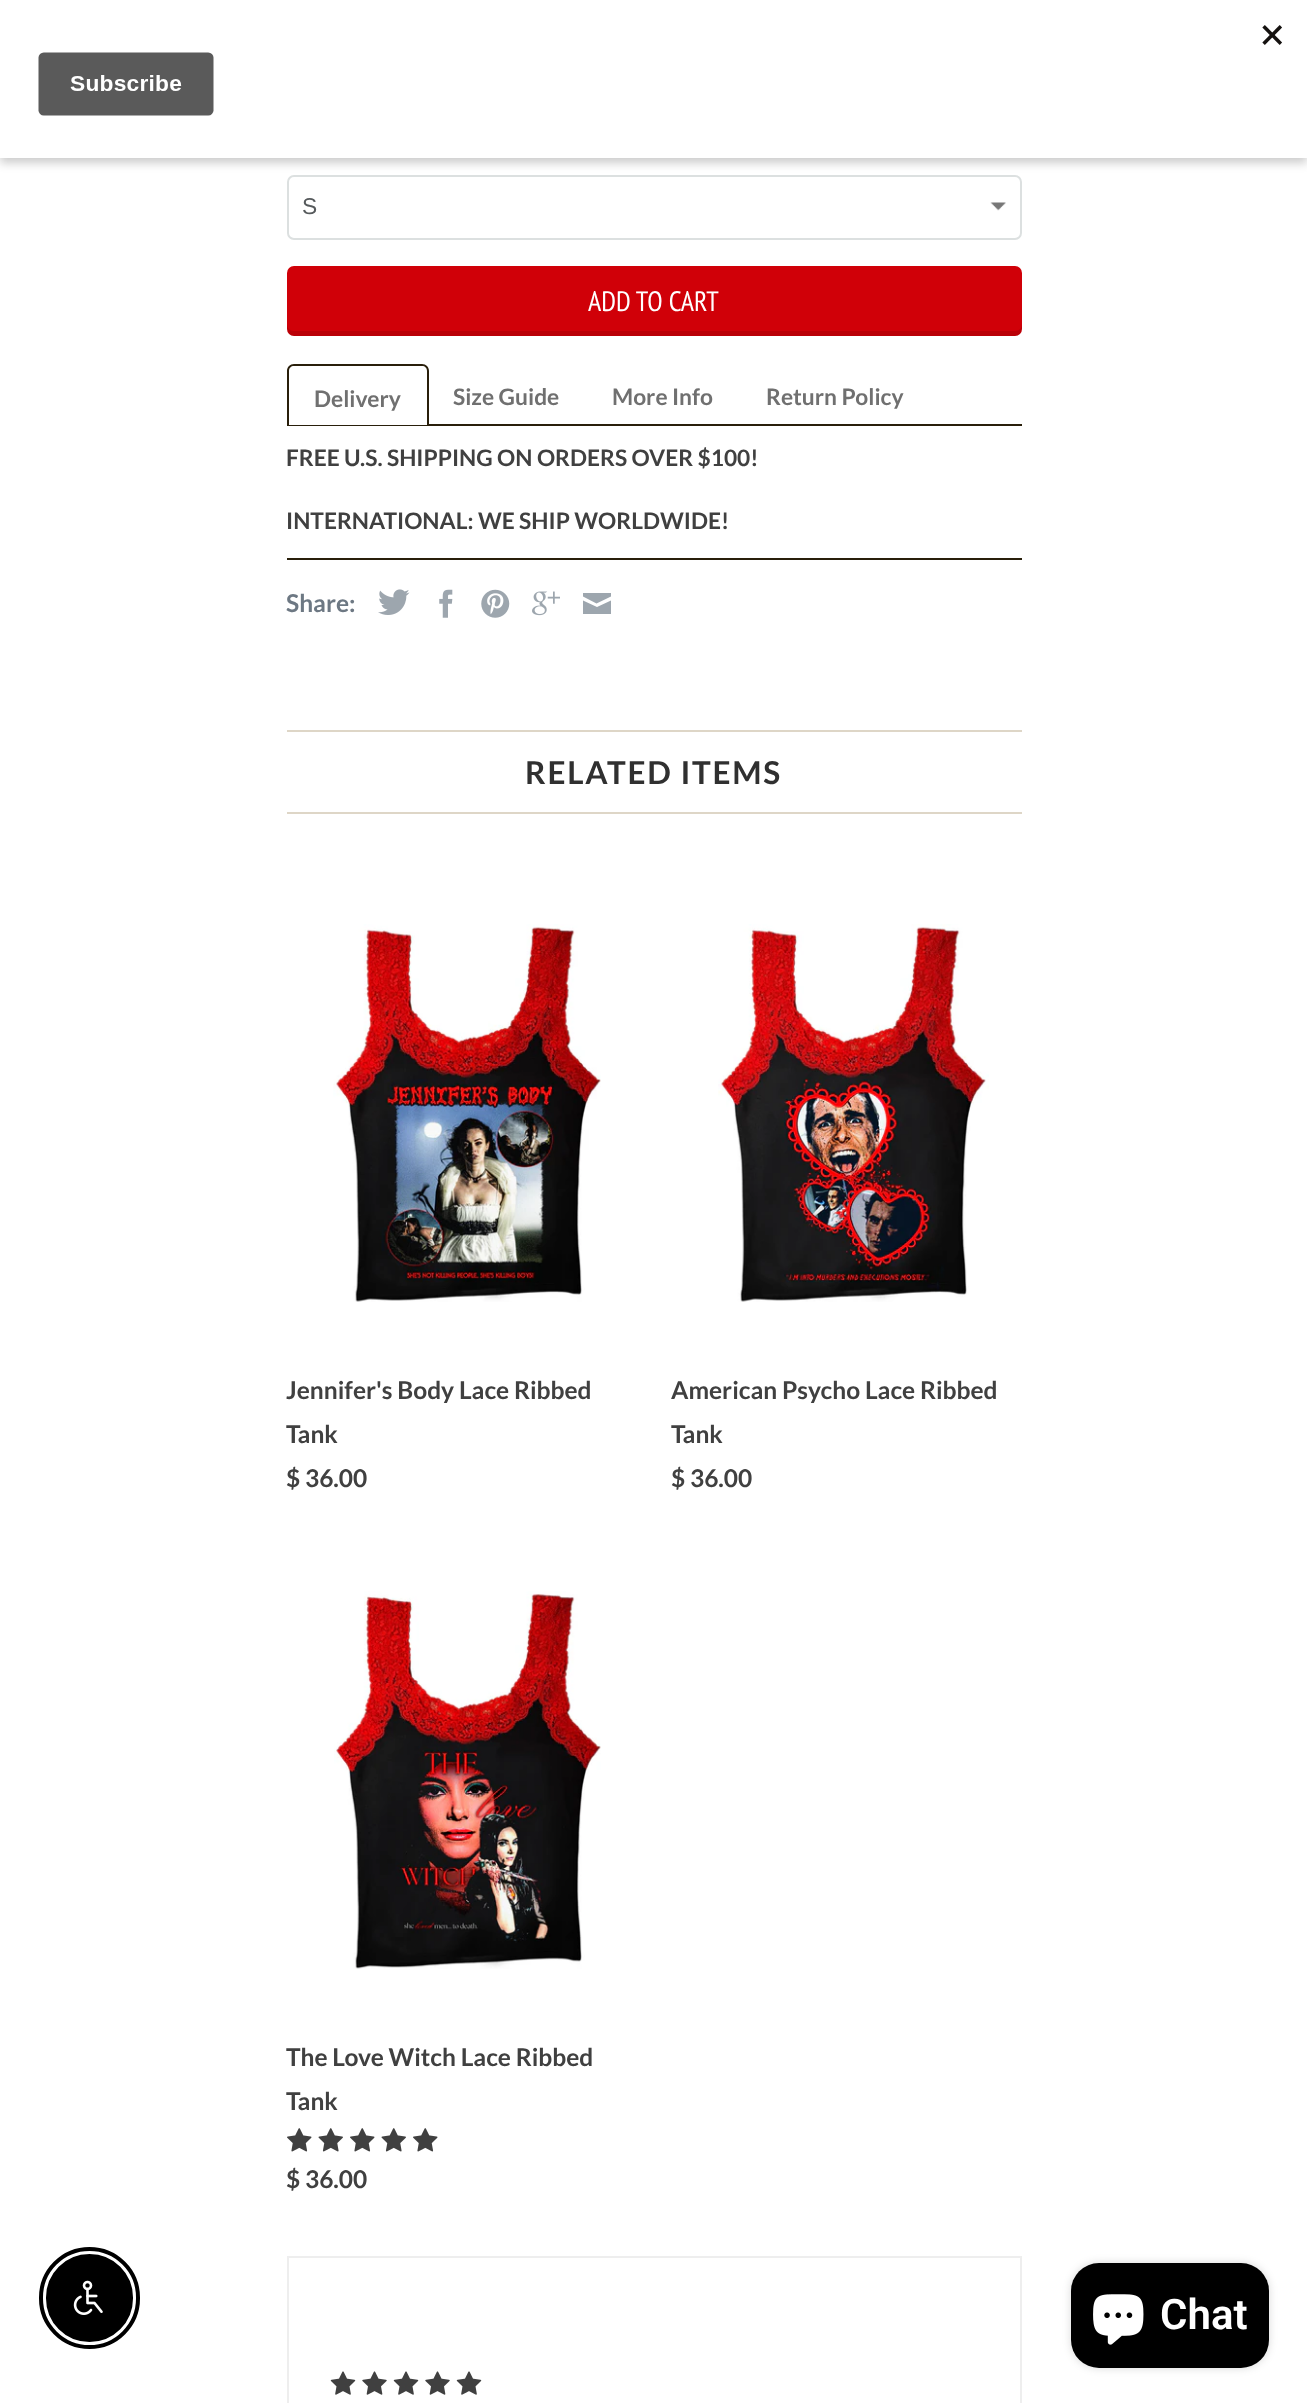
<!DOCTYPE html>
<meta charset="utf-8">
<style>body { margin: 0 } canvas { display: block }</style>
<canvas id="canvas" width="1307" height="2403"></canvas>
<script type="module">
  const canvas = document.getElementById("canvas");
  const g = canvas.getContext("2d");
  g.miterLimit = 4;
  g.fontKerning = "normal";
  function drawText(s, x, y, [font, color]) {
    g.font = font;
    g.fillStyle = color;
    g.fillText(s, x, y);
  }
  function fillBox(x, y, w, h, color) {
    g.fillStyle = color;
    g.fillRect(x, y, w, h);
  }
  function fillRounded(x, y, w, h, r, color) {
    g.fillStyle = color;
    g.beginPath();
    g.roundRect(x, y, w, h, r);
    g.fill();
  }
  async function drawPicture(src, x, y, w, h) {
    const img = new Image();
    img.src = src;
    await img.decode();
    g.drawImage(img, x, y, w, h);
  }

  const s1 = ["22.75px Liberation Sans", "#565A5C"];
  const s2 = ["28px PT Sans Narrow", "#FFFFFF"];
  const s3 = ["bold 22.75px Lato", "#707070"];
  const s4 = ["bold 22.75px Lato", "#404040"];
  const s5 = ["bold 24.5px Lato", "#6D7883"];
  const s6 = ["bold 31.5px Lato", "#303030"];
  const s7 = ["bold 24.5px Lato", "#404040"];
  const s8 = ["600 42px Roboto", "#FFFFFF"];

  fillBox(0, 0, 1307, 2403, "#FFFFFF");
  await drawPicture("pic2.png", 990, 202, 16, 9);
  g.beginPath();
  g.roundRect(288, 176, 733, 63, 6);
  g.strokeStyle = "#DCE0E0";
  g.lineWidth = 2;
  g.stroke();
  g.fillStyle = "rgba(0, 0, 0, 0.2)";
  g.filter = "blur(5px)";
  g.beginPath();
  g.rect(0, 5, 1307, 158);
  g.fill();
  g.filter = "none";
  fillBox(0, 0, 1307, 158, "#FFFFFF");
  await drawPicture("pic1.png", 38, 25, 1244, 91);
  drawText("S", 302, 214, s1);
  fillRounded(287, 266, 735, 70, 7, "#D00008");
  g.fillStyle = "rgba(0, 0, 0, 0.1)";
  g.beginPath();
  g.moveTo(287, 324);
  g.bezierCurveTo(287, 329, 287, 336, 294, 336);
  g.lineTo(1015, 336);
  g.bezierCurveTo(1022, 336, 1022, 329, 1022, 324);
  g.bezierCurveTo(1022, 328, 1019, 331, 1015, 331);
  g.lineTo(294, 331);
  g.bezierCurveTo(290, 331, 287, 328, 287, 324);
  g.closePath();
  g.fill();
  drawText("ADD TO CART", 588, 311, s2);
  fillBox(287, 424, 735, 2, "#291F0B");
  g.fillStyle = "#FFFFFF";
  g.beginPath();
  g.roundRect(287, 364, 142, 61, [7, 7, 0, 0]);
  g.fill();
  g.fillStyle = "#291F0B";
  g.beginPath();
  g.moveTo(294, 364);
  g.lineTo(422, 364);
  g.bezierCurveTo(426, 364, 429, 367, 429, 371);
  g.lineTo(429, 425);
  g.lineTo(287, 425);
  g.lineTo(287, 371);
  g.bezierCurveTo(287, 367, 290, 364, 294, 364);
  g.closePath();
  g.moveTo(294, 366);
  g.lineTo(422, 366);
  g.bezierCurveTo(425, 366, 427, 368, 427, 371);
  g.lineTo(427, 425);
  g.lineTo(289, 425);
  g.lineTo(289, 371);
  g.bezierCurveTo(289, 368, 291, 366, 294, 366);
  g.closePath();
  g.fill("evenodd");
  drawText("Delivery", 314, 407, s3);
  drawText("Size Guide", 453, 405, s3);
  drawText("More Info", 612, 405, s3);
  drawText("Return Policy", 766, 405, s3);
  drawText("FREE U.S. SHIPPING ON ORDERS OVER $100!", 286, 466, s4);
  drawText("INTERNATIONAL: WE SHIP WORLDWIDE!", 286, 529, s4);
  fillBox(287, 558, 735, 2, "#291F0B");
  drawText("Share:", 286, 612, s5);
  g.fillStyle = "#9DA6AE";
  g.beginPath();
  g.moveTo(596.5, 603.5);
  g.lineTo(583, 596.5);
  g.lineTo(583, 593);
  g.lineTo(611, 593);
  g.lineTo(611, 596.5);
  g.closePath();
  g.moveTo(597, 607);
  g.lineTo(611, 600.5);
  g.lineTo(611, 614);
  g.lineTo(583, 614);
  g.lineTo(583, 600.5);
  g.closePath();
  g.fill();
  await drawPicture("pic3.png", 378, 589, 32, 26);
  await drawPicture("pic4.png", 439, 589, 14, 29);
  await drawPicture("pic5.png", 481, 589, 29, 29);
  await drawPicture("pic6.png", 532, 591, 28, 25);
  fillBox(287, 730, 735, 2, "#DED6C7");
  fillBox(287, 812, 735, 2, "#DED6C7");
  g.letterSpacing = "1.75px";
  drawText("RELATED ITEMS", 525, 784, s6);
  await drawPicture("pic7.png", 333, 924, 268, 378);
  g.letterSpacing = "0px";
  drawText("Jennifer's Body Lace Ribbed", 286, 1399, s7);
  drawText("Tank", 286, 1443, s7);
  drawText("$ 36.00", 286, 1487, s7);
  await drawPicture("pic8.png", 718, 924, 271, 378);
  drawText("American Psycho Lace Ribbed", 671, 1399, s7);
  drawText("Tank", 671, 1443, s7);
  drawText("$ 36.00", 671, 1487, s7);
  await drawPicture("pic9.png", 334, 1591, 267, 378);
  drawText("The Love Witch Lace Ribbed", 286, 2066, s7);
  drawText("Tank", 286, 2110, s7);
  await drawPicture("pic10.png", 287, 2128, 25, 24);
  await drawPicture("pic11.png", 318, 2128, 25, 24);
  await drawPicture("pic10.png", 350, 2128, 25, 24);
  await drawPicture("pic11.png", 381, 2128, 25, 24);
  await drawPicture("pic10.png", 413, 2128, 25, 24);
  drawText("$ 36.00", 286, 2188, s7);
  g.strokeStyle = "#EEEEEE";
  g.strokeRect(288, 2257, 733, 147);
  await drawPicture("pic12.png", 330, 2371, 26, 24);
  await drawPicture("pic13.png", 362, 2371, 25, 24);
  await drawPicture("pic12.png", 393, 2371, 26, 24);
  await drawPicture("pic13.png", 425, 2371, 25, 24);
  await drawPicture("pic12.png", 456, 2371, 26, 24);
  g.beginPath();
  g.roundRect(41, 2249, 97, 98, 48.5);
  g.strokeStyle = "#000000";
  g.lineWidth = 4;
  g.stroke();
  g.fillStyle = "#000000";
  g.beginPath();
  g.roundRect(47, 2255, 85, 86, 42.5);
  g.fill();
  g.lineWidth = 2;
  g.stroke();
  await drawPicture("pic14.png", 73, 2280, 30, 35);
  g.fillStyle = "rgba(0, 0, 0, 0.15)";
  g.filter = "blur(4.5px)";
  g.beginPath();
  g.roundRect(1071, 2263, 198, 105, 28);
  g.fill();
  g.filter = "none";
  fillRounded(1071, 2263, 198, 105, 28, "#000000");
  await drawPicture("pic15.png", 1093, 2294, 51, 51);
  drawText("Chat", 1160, 2329, s8);
</script>
